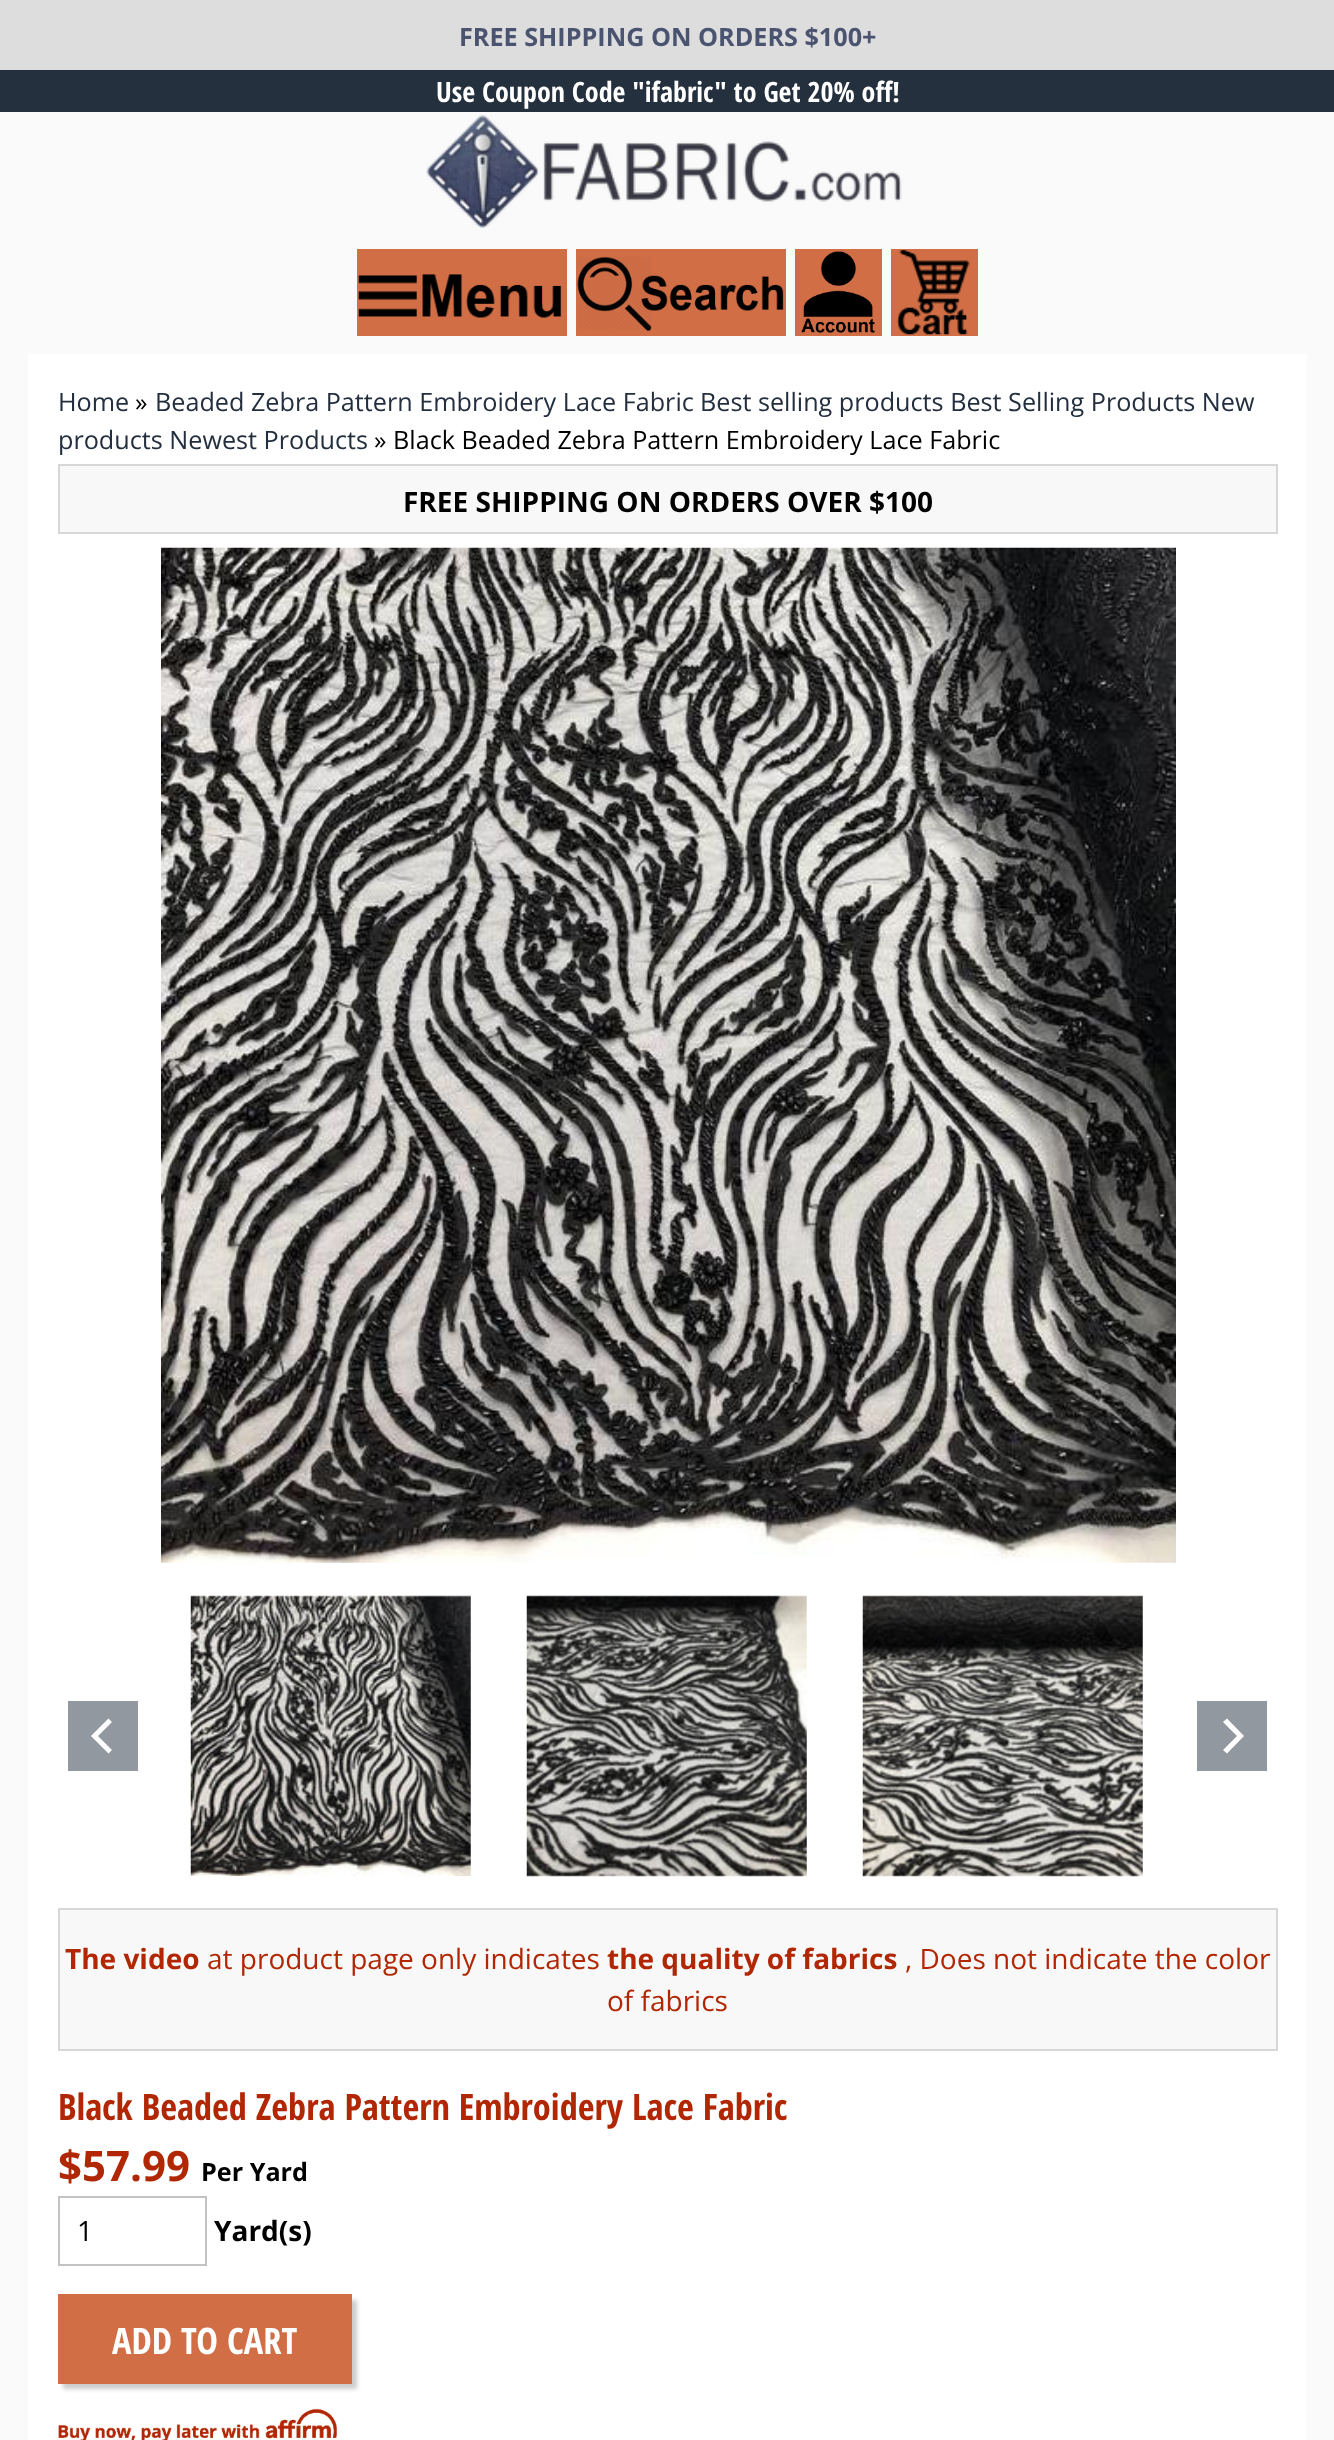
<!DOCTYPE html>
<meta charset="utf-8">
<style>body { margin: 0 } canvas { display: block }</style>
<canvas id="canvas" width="1334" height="2440"></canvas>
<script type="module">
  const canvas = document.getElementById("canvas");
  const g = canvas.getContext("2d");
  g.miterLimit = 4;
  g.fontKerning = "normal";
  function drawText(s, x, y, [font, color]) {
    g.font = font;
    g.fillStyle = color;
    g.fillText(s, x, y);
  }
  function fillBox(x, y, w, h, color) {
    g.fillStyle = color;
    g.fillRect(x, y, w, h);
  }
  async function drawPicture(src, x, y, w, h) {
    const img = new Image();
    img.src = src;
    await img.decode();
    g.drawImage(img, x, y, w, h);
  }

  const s1 = ["bold 25.2px Open Sans", "#4A536F"];
  const s2 = ["bold 28px Open Sans Condensed", "#FFFFFF"];
  const s3 = ["25.2px Open Sans", "#232F3E"];
  const s4 = ["25.2px Open Sans", "#000000"];
  const s5 = ["bold 28px Open Sans", "#000000"];
  const s6 = ["bold 28px Open Sans", "#B12704"];
  const s7 = ["28px Open Sans", "#B12704"];
  const s8 = ["bold 36.4px Open Sans Condensed", "#B12704"];
  const s9 = ["bold 42px Open Sans", "#B12704"];
  const s10 = ["bold 25.2px Open Sans", "#000000"];
  const s11 = ["28px Open Sans", "#000000"];
  const s12 = ["bold 36.4px Open Sans Condensed", "#FFFFFF"];

  fillBox(0, 0, 1334, 2440, "#FAFAFA");
  fillBox(0, 0, 1334, 70, "#DDDDDD");
  drawText("FREE SHIPPING ON ORDERS $100+", 459, 46, s1);
  fillBox(0, 70, 1334, 42, "#24303E");
  drawText("Use Coupon Code \"ifabric\" to Get 20% off!", 436, 102, s2);
  await drawPicture("pic1.png", 426, 115, 476, 113);
  fillBox(357, 249, 210, 87, "#D26E46");
  await drawPicture("pic2.png", 358, 274, 204, 44);
  fillBox(576, 249, 210, 87, "#D26E46");
  await drawPicture("pic3.png", 577, 256, 207, 76);
  fillBox(795, 249, 87, 87, "#D26E46");
  await drawPicture("pic4.png", 801, 251, 74, 82);
  fillBox(891, 249, 87, 87, "#D26E46");
  await drawPicture("pic5.png", 896, 250, 74, 85);
  fillBox(28, 354, 1279, 2086, "#FFFFFF");
  drawText("Home", 58, 411, s3);
  drawText("»", 135, 411, s4);
  drawText("Beaded Zebra Pattern Embroidery Lace Fabric", 155, 411, s3);
  drawText("Best selling products Best Selling Products New", 700, 411, s3);
  drawText("products Newest Products", 58, 449, s3);
  drawText("» Black Beaded Zebra Pattern Embroidery Lace Fabric", 374, 449, s4);
  g.fillStyle = "#F8F8F8";
  g.beginPath();
  g.rect(59, 465, 1218, 68);
  g.fill();
  g.strokeStyle = "#D7D7D7";
  g.lineWidth = 2;
  g.stroke();
  drawText("FREE SHIPPING ON ORDERS OVER $100", 403, 512, s5);
  await drawPicture("pic6.png", 161, 547, 1015, 1016);
  await drawPicture("pic7.png", 190, 1595, 281, 281);
  await drawPicture("pic8.png", 526, 1595, 281, 282);
  await drawPicture("pic9.png", 862, 1595, 281, 282);
  fillBox(68, 1701, 70, 70, "#92989F");
  g.fillStyle = "#FFFFFF";
  g.beginPath();
  g.moveTo(108.5, 1718.5);
  g.lineTo(112, 1722);
  g.lineTo(98, 1736);
  g.lineTo(112, 1750);
  g.lineTo(108.5, 1753.5);
  g.lineTo(91, 1736);
  g.closePath();
  g.fill();
  fillBox(1197, 1701, 70, 70, "#92989F");
  g.fillStyle = "#FFFFFF";
  g.beginPath();
  g.moveTo(1227, 1753.5);
  g.lineTo(1223, 1750);
  g.lineTo(1237, 1736);
  g.lineTo(1223, 1722);
  g.lineTo(1227, 1718.5);
  g.lineTo(1244, 1736);
  g.closePath();
  g.fill();
  g.fillStyle = "#F8F8F8";
  g.beginPath();
  g.rect(59, 1909, 1218, 141);
  g.fill();
  g.stroke();
  drawText("The video", 65, 1969, s6);
  drawText("at product page only indicates", 207, 1969, s7);
  drawText("the quality of fabrics", 607, 1969, s6);
  drawText(", Does not indicate the color", 905, 1969, s7);
  drawText("of fabrics", 607, 2011, s7);
  drawText("Black Beaded Zebra Pattern Embroidery Lace Fabric", 58, 2120, s8);
  drawText("$57.99", 58, 2181, s9);
  drawText("Per Yard", 201, 2181, s10);
  g.strokeStyle = "#C3C3C3";
  g.strokeRect(59, 2197, 147, 68);
  drawText("1", 77, 2241, s11);
  drawText("Yard(s)", 214, 2241, s5);
  g.fillStyle = "rgba(0, 0, 0, 0.2)";
  g.filter = "blur(2px)";
  g.beginPath();
  g.rect(63, 2300, 294, 89);
  g.fill();
  g.filter = "none";
  fillBox(58, 2294, 294, 90, "#D26E46");
  drawText("ADD TO CART", 112, 2354, s12);
  await drawPicture("pic10.png", 58, 2408, 279, 32);
</script>
